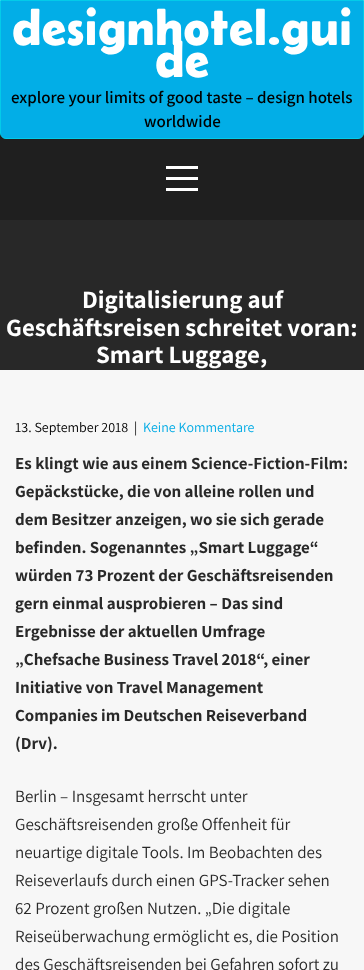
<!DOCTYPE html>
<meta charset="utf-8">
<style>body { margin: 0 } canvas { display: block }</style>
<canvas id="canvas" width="364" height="970"></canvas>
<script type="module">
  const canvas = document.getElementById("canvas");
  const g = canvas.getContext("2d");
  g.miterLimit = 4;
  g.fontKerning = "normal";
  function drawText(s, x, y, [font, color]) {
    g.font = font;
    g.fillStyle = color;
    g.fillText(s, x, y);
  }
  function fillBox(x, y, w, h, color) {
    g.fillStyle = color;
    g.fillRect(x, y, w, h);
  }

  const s1 = ["600 50px Belanosima", "#FFFFFF"];
  const s2 = ["600 17px Assistant", "#000000"];
  const s3 = ["bold 25px Assistant", "#FFFFFF"];
  const s4 = ["14px Assistant", "#000000"];
  const s5 = ["14px Assistant", "#02ABE5"];
  const s6 = ["bold 17px Assistant", "#292929"];
  const s7 = ["17px Assistant", "#292929"];

  fillBox(0, 0, 364, 970, "#F7F7F7");
  fillBox(0, 133, 364, 87, "#1F1F1F");
  g.fillStyle = "#02AEE7";
  g.beginPath();
  g.roundRect(0.5, 0.5, 363, 138, [0, 0, 5.5, 5.5]);
  g.fill();
  g.strokeStyle = "#03CBE9";
  g.stroke();
  drawText("designhotel.gui", 12, 45, s1);
  drawText("de", 155, 77, s1);
  drawText("explore your limits of good taste – design hotels", 11, 103, s2);
  drawText("worldwide", 144, 127, s2);
  fillBox(166, 166, 32, 3, "#FFFFFF");
  fillBox(166, 177, 32, 3, "#FFFFFF");
  fillBox(166, 188, 32, 3, "#FFFFFF");
  fillBox(0, 220, 364, 150, "#282828");
  drawText("Digitalisierung auf", 82, 308, s3);
  drawText("Geschäftsreisen schreitet voran:", 6, 336, s3);
  drawText("Smart Luggage,", 96, 363, s3);
  drawText("13. September 2018", 15, 432, s4);
  drawText("|", 134, 432, s4);
  drawText("Keine Kommentare", 143, 432, s5);
  drawText("Es klingt wie aus einem Science-Fiction-Film:", 15, 469, s6);
  drawText("Gepäckstücke, die von alleine rollen und", 15, 497, s6);
  drawText("dem Besitzer anzeigen, wo sie sich gerade", 15, 525, s6);
  drawText("befinden. Sogenanntes „Smart Luggage“", 15, 553, s6);
  drawText("würden 73 Prozent der Geschäftsreisenden", 15, 581, s6);
  drawText("gern einmal ausprobieren – Das sind", 15, 609, s6);
  drawText("Ergebnisse der aktuellen Umfrage", 15, 637, s6);
  drawText("„Chefsache Business Travel 2018“, einer", 15, 665, s6);
  drawText("Initiative von Travel Management", 15, 693, s6);
  drawText("Companies im Deutschen Reiseverband", 15, 721, s6);
  drawText("(Drv).", 15, 749, s6);
  drawText("Berlin – Insgesamt herrscht unter", 15, 802, s7);
  drawText("Geschäftsreisenden große Offenheit für", 15, 830, s7);
  drawText("neuartige digitale Tools. Im Beobachten des", 15, 858, s7);
  drawText("Reiseverlaufs durch einen GPS-Tracker sehen", 15, 886, s7);
  drawText("62 Prozent großen Nutzen. „Die digitale", 15, 914, s7);
  drawText("Reiseüberwachung ermöglicht es, die Position", 15, 942, s7);
  drawText("des Geschäftsreisenden bei Gefahren sofort zu", 15, 970, s7);
</script>
